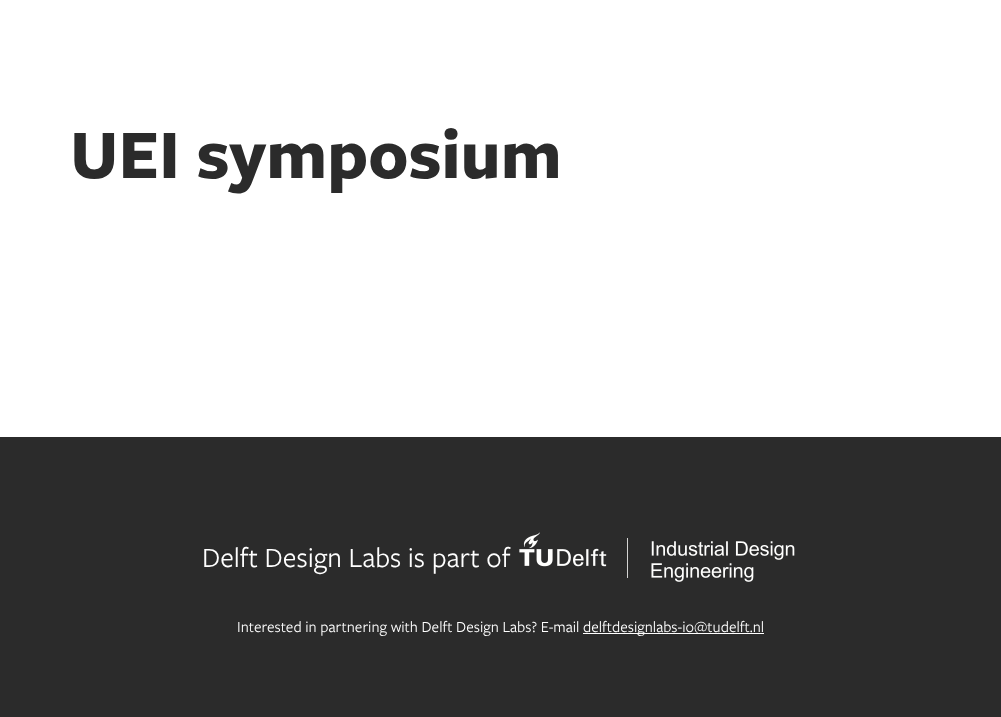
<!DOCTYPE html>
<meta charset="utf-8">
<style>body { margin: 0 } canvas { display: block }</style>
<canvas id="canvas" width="1001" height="717"></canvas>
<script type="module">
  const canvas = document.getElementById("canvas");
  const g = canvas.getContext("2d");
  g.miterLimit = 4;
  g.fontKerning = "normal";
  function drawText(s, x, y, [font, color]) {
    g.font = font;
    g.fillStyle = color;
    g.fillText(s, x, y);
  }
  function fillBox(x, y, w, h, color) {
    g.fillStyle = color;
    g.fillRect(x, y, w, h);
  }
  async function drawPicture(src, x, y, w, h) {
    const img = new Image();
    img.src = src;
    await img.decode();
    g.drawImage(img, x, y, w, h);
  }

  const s1 = ["bold 72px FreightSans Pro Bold", "#2B2B2B"];
  const s2 = ["29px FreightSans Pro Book", "#FFFFFF"];
  const s3 = ["16px FreightSans Pro Book", "#FFFFFF"];

  fillBox(0, 0, 1001, 717, "#FFFFFF");
  drawText("UEI symposium", 70, 178, s1);
  fillBox(0, 437, 1001, 280, "#2B2B2B");
  drawText("Delft Design Labs is part of", 202, 567, s2);
  await drawPicture("pic1.png", 519, 532, 276, 50);
  drawText("Interested in partnering with Delft Design Labs? E-mail", 237, 632, s3);
  fillBox(583, 633, 181, 1, "#FFFFFF");
  drawText("delftdesignlabs-io@tudelft.nl", 583, 632, s3);
</script>
